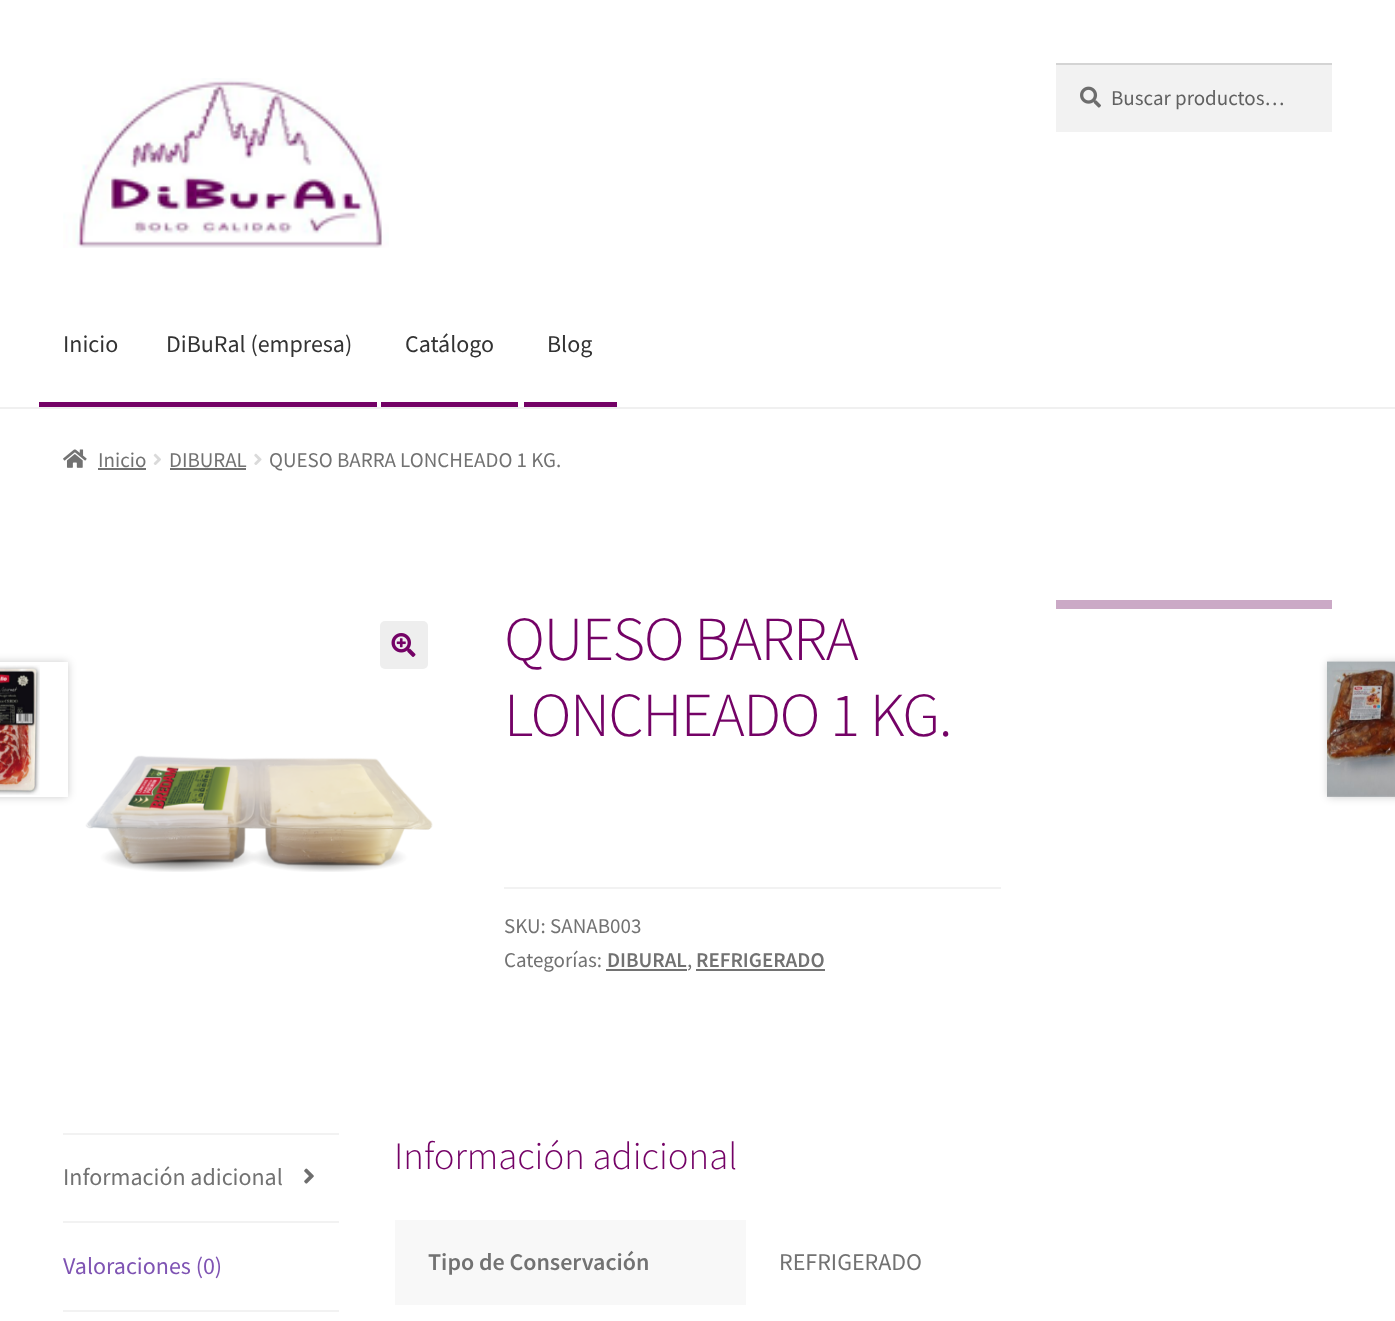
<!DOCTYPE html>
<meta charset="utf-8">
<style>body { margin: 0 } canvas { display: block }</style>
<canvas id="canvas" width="1395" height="1321"></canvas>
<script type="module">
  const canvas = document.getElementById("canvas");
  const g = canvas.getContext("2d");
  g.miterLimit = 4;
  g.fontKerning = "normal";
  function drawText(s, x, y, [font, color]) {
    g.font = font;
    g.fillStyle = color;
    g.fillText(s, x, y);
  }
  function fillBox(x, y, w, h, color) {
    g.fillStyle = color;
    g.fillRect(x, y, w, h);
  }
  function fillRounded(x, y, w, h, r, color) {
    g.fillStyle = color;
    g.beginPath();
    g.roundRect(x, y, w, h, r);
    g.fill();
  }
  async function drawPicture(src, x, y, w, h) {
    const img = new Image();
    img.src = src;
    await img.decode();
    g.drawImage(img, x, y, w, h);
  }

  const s1 = ["21px Source Sans Pro", "#616161"];
  const s2 = ["24px Source Sans Pro", "#333333"];
  const s3 = ["21px Source Sans Pro", "#727272"];
  const s4 = ["300 62.75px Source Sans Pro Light", "#740266"];
  const s5 = ["600 21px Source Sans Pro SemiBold", "#727272"];
  const s6 = ["24px Source Sans Pro", "#727272"];
  const s7 = ["24px Source Sans Pro", "#7F54B3"];
  const s8 = ["300 38.75px Source Sans Pro Light", "#740266"];
  const s9 = ["600 24px Source Sans Pro SemiBold", "#727272"];

  fillBox(0, 0, 1395, 1321, "#FFFFFF");
  fillBox(0, 407, 1395, 2, "#F0F0F0");
  await drawPicture("pic1.png", 63, 78, 326, 170);
  fillBox(1056, 65, 276, 67, "#F2F2F2");
  await drawPicture("pic2.png", 1080, 86, 21, 22);
  fillBox(1056, 63, 276, 2, "#D4D4D4");
  drawText("Buscar productos…", 1111, 105, s1);
  fillBox(39, 402, 338, 5, "#740266");
  drawText("Inicio", 63, 352, s2);
  drawText("DiBuRal (empresa)", 166, 352, s2);
  fillBox(381, 402, 137, 5, "#740266");
  drawText("Catálogo", 405, 352, s2);
  fillBox(524, 402, 93, 5, "#740266");
  drawText("Blog", 547, 352, s2);
  await drawPicture("pic3.png", 63, 449, 24, 19);
  drawText("Inicio", 98, 467, s3);
  fillBox(98, 468, 48, 2, "#727272");
  await drawPicture("pic4.png", 153, 453, 8, 12);
  drawText("DIBURAL", 169, 467, s3);
  fillBox(170, 468, 76, 2, "#727272");
  await drawPicture("pic5.png", 254, 453, 8, 12);
  drawText("QUESO BARRA LONCHEADO 1 KG.", 269, 467, s3);
  fillBox(1056, 600, 276, 9, "#CBA9C6");
  fillRounded(380, 621, 48, 48, 5, "#EEEEEE");
  await drawPicture("pic6.png", 391, 633, 25, 24);
  await drawPicture("pic7.png", 85, 755, 348, 117);
  g.letterSpacing = "-1.5px";
  drawText("QUESO BARRA", 504, 660, s4);
  drawText("LONCHEADO 1 KG.", 504, 736, s4);
  fillBox(504, 887, 497, 2, "#F2F2F2");
  g.letterSpacing = "0px";
  drawText("SKU: SANAB003", 504, 933, s3);
  drawText("Categorías:", 504, 967, s3);
  drawText("DIBURAL", 607, 967, s5);
  fillBox(606, 969, 81, 2, "#727272");
  drawText(",", 687, 967, s3);
  drawText("REFRIGERADO", 696, 967, s5);
  fillBox(696, 969, 129, 2, "#727272");
  g.fillStyle = "rgba(0, 0, 0, 0.2)";
  g.filter = "blur(4px)";
  g.beginPath();
  g.rect(-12, 662, 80, 135);
  g.fill();
  g.filter = "none";
  fillBox(0, 662, 68, 135, "#FFFFFF");
  await drawPicture("pic8.png", 0, 665, 40, 130);
  g.fillStyle = "rgba(0, 0, 0, 0.2)";
  g.filter = "blur(4px)";
  g.beginPath();
  g.rect(1328, 662, 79, 135);
  g.fill();
  g.filter = "none";
  await drawPicture("pic9.png", 1327, 661, 68, 136);
  fillBox(63, 1133, 276, 2, "#F2F2F2");
  fillBox(63, 1221, 276, 2, "#F2F2F2");
  drawText("Información adicional", 63, 1185, s6);
  await drawPicture("pic10.png", 304, 1168, 10, 16);
  fillBox(63, 1310, 276, 2, "#F2F2F2");
  drawText("Valoraciones (0)", 63, 1274, s7);
  drawText("Información adicional", 394, 1169, s8);
  fillBox(395, 1220, 351, 85, "#F8F8F8");
  drawText("Tipo de Conservación", 428, 1270, s9);
  drawText("REFRIGERADO", 779, 1270, s6);
</script>
